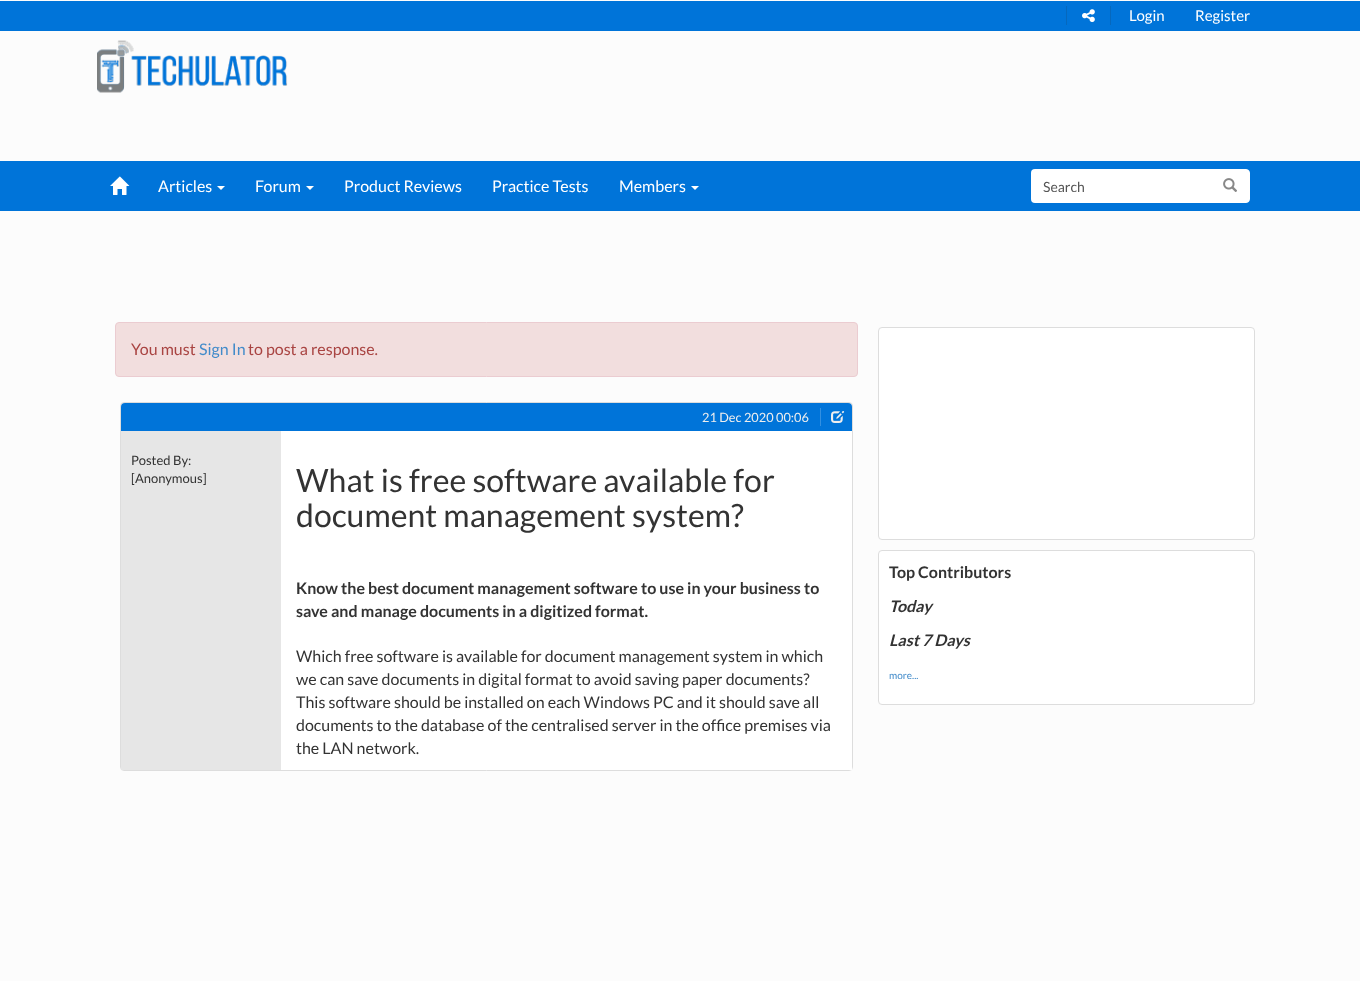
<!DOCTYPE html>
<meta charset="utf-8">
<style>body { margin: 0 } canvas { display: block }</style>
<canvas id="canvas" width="1360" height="981"></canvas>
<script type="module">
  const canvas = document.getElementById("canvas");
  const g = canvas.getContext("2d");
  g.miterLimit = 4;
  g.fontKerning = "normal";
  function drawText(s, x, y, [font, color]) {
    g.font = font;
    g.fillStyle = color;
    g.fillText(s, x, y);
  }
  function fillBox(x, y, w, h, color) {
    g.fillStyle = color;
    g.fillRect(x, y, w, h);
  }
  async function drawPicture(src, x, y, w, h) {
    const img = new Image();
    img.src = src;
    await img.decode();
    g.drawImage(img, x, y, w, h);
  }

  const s1 = ["15px Lato", "#FFFFFF"];
  const s2 = ["16px Lato", "#FFFFFF"];
  const s3 = ["14px Lato", "#555555"];
  const s4 = ["16px Lato", "#A94442"];
  const s5 = ["16px Lato", "#428BCA"];
  const s6 = ["12.75px Lato", "#EEEEEE"];
  const s7 = ["13px Lato", "#333333"];
  const s8 = ["32px Lato", "#333333"];
  const s9 = ["bold 16px Lato", "#333333"];
  const s10 = ["16px Lato", "#333333"];
  const s11 = ["italic bold 16px Lato", "#333333"];
  const s12 = ["10px Lato", "#428BCA"];

  fillBox(0, 0, 1360, 981, "#FCFCFC");
  fillBox(0, 1, 1360, 30, "#0074D9");
  fillBox(1110, 6, 1, 19, "#0668BD");
  fillBox(1066, 6, 1, 19, "#0668BD");
  await drawPicture("pic1.png", 1082, 9, 13, 14);
  drawText("Login", 1129, 21, s1);
  drawText("Register", 1195, 21, s1);
  await drawPicture("pic2.png", 97, 40, 191, 53);
  fillBox(0, 161, 1360, 50, "#0074D9");
  await drawPicture("pic3.png", 110, 176, 20, 19);
  drawText("Articles", 158, 192, s2);
  g.beginPath();
  g.moveTo(217, 186);
  g.lineTo(225, 186);
  g.lineTo(221, 190);
  g.closePath();
  g.fill();
  drawText("Forum", 255, 192, s2);
  g.beginPath();
  g.moveTo(306, 186);
  g.lineTo(314, 186);
  g.lineTo(310, 190);
  g.closePath();
  g.fill();
  drawText("Product Reviews", 344, 192, s2);
  drawText("Practice Tests", 492, 192, s2);
  drawText("Members", 619, 192, s2);
  g.beginPath();
  g.moveTo(691, 186);
  g.lineTo(699, 186);
  g.lineTo(695, 190);
  g.closePath();
  g.fill();
  g.beginPath();
  g.roundRect(1210.5, 169.5, 39, 33, [0, 3.5, 3.5, 0]);
  g.fill();
  g.strokeStyle = "#FFFFFF";
  g.stroke();
  g.beginPath();
  g.roundRect(1031, 169, 180, 34, [4, 0, 0, 4]);
  g.fill();
  drawText("Search", 1043, 192, s3);
  await drawPicture("pic4.png", 1223, 178, 14, 14);
  g.fillStyle = "#F2DEDE";
  g.beginPath();
  g.roundRect(115.5, 322.5, 742, 54, 3.5);
  g.fill();
  g.strokeStyle = "#EBCCD1";
  g.stroke();
  drawText("You must", 131, 355, s4);
  drawText("Sign In", 199, 355, s5);
  drawText("to post a response.", 248, 355, s4);
  g.beginPath();
  g.roundRect(120.5, 402.5, 732, 368, 3.5);
  g.strokeStyle = "#DDDDDD";
  g.stroke();
  g.fillStyle = "#0074D9";
  g.beginPath();
  g.roundRect(121, 403, 731, 28, [4, 4, 0, 0]);
  g.fill();
  drawText("21 Dec 2020 00:06", 702, 422, s6);
  fillBox(820, 408, 1, 18, "#3390E1");
  await drawPicture("pic5.png", 831, 411, 14, 12);
  fillBox(121, 431, 160, 339, "#E6E6E6");
  drawText("Posted By:", 131, 465, s7);
  drawText("[Anonymous]", 131, 483, s7);
  fillBox(281, 431, 571, 339, "#FFFFFF");
  drawText("What is free software available for", 296, 492, s8);
  drawText("document management system?", 296, 527, s8);
  drawText("Know the best document management software to use in your business to", 296, 594, s9);
  drawText("save and manage documents in a digitized format.", 296, 617, s9);
  drawText("Which free software is available for document management system in which", 296, 662, s10);
  drawText("we can save documents in digital format to avoid saving paper documents?", 296, 685, s10);
  drawText("This software should be installed on each Windows PC and it should save all", 296, 708, s10);
  drawText("documents to the database of the centralised server in the office premises via", 296, 731, s10);
  drawText("the LAN network.", 296, 754, s10);
  g.fillStyle = "#FFFFFF";
  g.beginPath();
  g.roundRect(878.5, 327.5, 376, 212, 3.5);
  g.fill();
  g.stroke();
  g.beginPath();
  g.roundRect(878.5, 550.5, 376, 154, 3.5);
  g.fill();
  g.stroke();
  drawText("Top Contributors", 889, 578, s9);
  drawText("Today", 889, 612, s11);
  drawText("Last 7 Days", 889, 646, s11);
  drawText("more...", 889, 679, s12);
</script>
